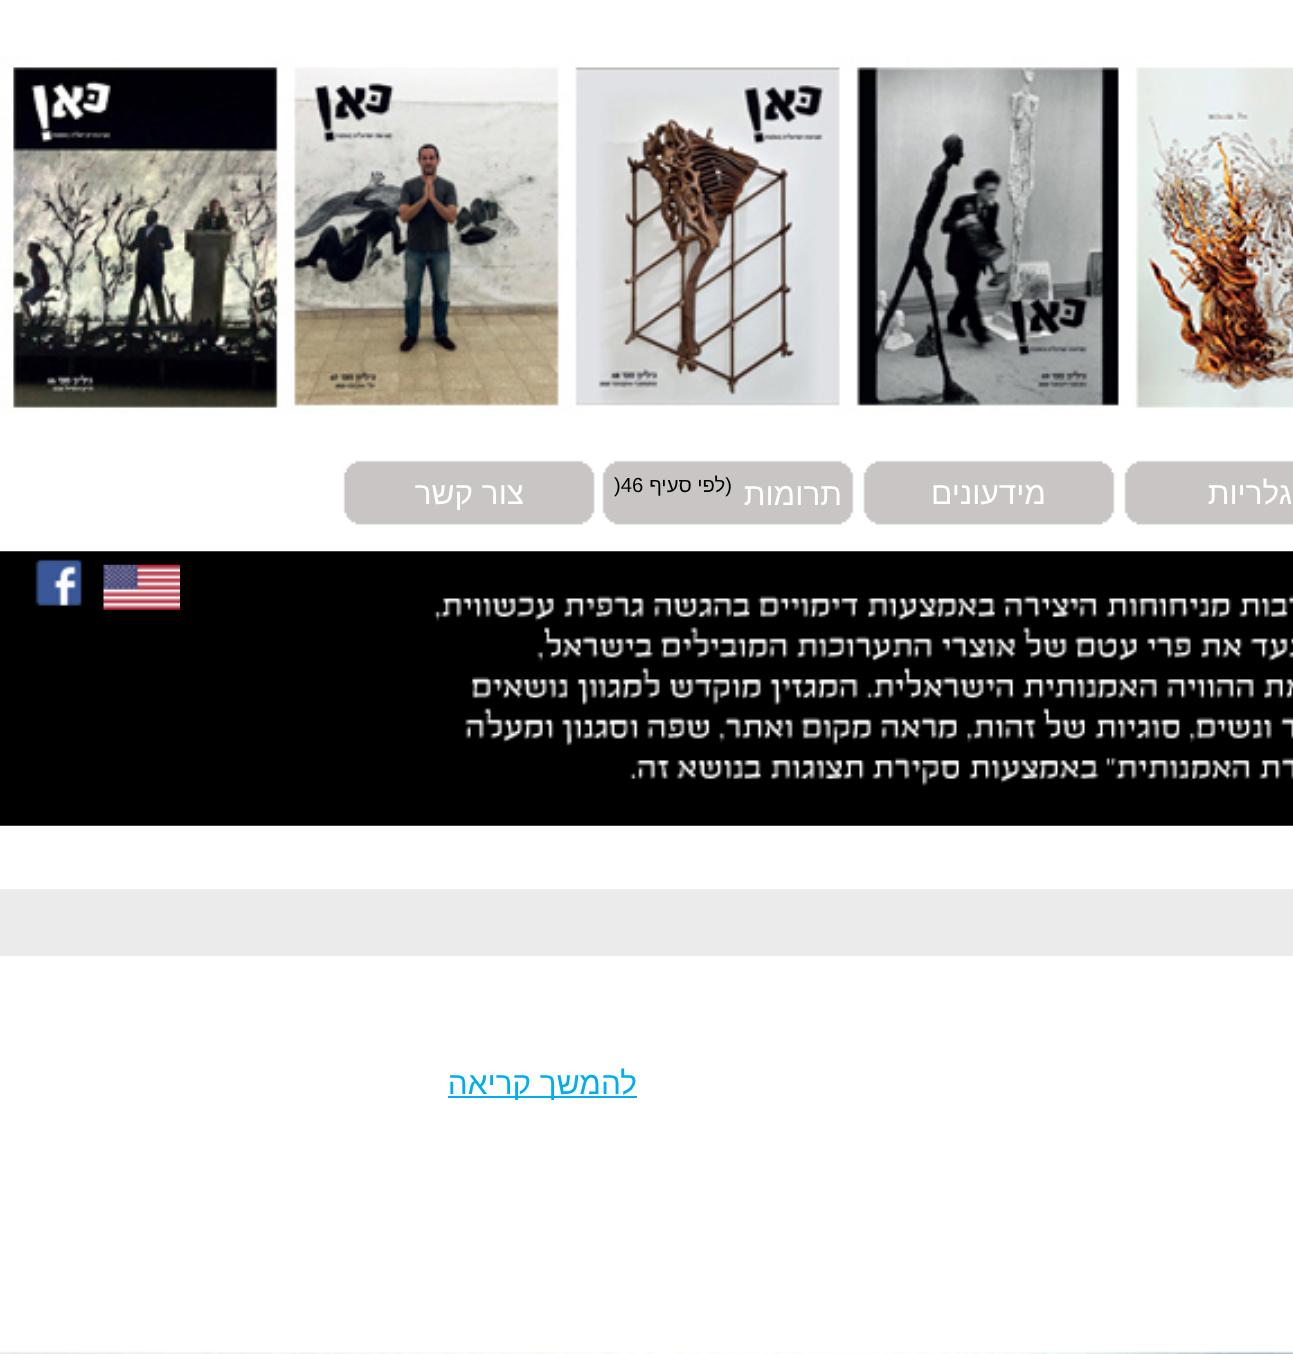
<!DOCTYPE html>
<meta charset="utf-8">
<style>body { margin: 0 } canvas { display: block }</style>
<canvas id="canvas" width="1293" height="1354"></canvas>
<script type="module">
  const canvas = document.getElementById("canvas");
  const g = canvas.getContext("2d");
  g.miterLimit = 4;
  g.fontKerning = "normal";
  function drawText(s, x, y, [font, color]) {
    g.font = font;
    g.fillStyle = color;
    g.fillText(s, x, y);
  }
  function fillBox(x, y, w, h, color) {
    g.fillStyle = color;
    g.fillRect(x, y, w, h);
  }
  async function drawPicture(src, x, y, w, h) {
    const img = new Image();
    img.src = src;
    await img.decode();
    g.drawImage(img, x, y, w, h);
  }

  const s1 = ["31.5px Liberation Sans", "#FFFFFF"];
  const s2 = ["20.25px Liberation Sans", "#000000"];
  const s3 = ["31.5px Liberation Sans", "#00AEEF"];

  fillBox(0, 0, 1293, 1354, "#FFFFFF");
  await drawPicture("pic1.png", 0, 55, 1293, 359);
  await drawPicture("pic2.png", 1124, 460, 169, 65);
  g.direction = "rtl";
  drawText("גלריות", 1292, 504, s1);
  await drawPicture("pic3.png", 863, 460, 252, 65);
  drawText("מידעונים", 1046, 504, s1);
  await drawPicture("pic4.png", 602, 460, 252, 65);
  drawText("תרומות", 842, 505, s1);
  drawText("(לפי סעיף", 732, 492, s2);
  g.direction = "ltr";
  drawText(")46", 614, 492, s2);
  await drawPicture("pic5.png", 343, 460, 252, 65);
  g.direction = "rtl";
  drawText("צור קשר", 524, 504, s1);
  await drawPicture("pic6.png", 0, 551, 1293, 275);
  await drawPicture("pic7.png", 103, 564, 77, 46);
  await drawPicture("pic8.png", 35, 559, 47, 47);
  fillBox(0, 889, 1293, 67, "#EBEBEB");
  fillBox(448, 1096, 189, 2, "#00AEEF");
  drawText("להמשך קריאה", 637, 1094, s3);
  await drawPicture("pic9.png", 0, 1351, 1293, 3);
</script>
